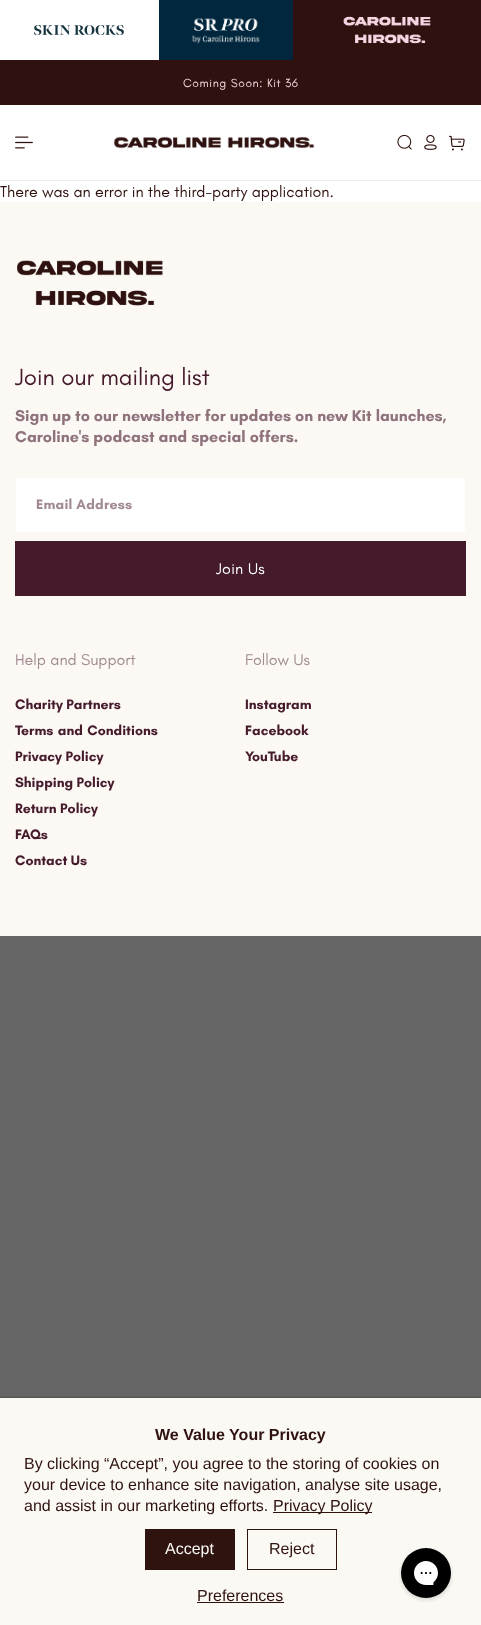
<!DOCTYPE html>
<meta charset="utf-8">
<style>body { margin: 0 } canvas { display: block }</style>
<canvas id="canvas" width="481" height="1625"></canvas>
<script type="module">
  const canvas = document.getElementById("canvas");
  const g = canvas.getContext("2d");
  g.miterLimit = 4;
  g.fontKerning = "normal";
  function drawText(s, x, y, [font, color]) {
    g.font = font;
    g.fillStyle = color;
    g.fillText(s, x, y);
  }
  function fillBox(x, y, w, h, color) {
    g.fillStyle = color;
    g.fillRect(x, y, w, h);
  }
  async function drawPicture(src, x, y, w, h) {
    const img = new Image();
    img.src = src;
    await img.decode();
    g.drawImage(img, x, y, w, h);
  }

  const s1 = ["12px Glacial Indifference", "#F9D6E2"];
  const s2 = ["16px Glacial Indifference", "#2F120F"];
  const s3 = ["24px Glacial Indifference", "#451A2B"];
  const s4 = ["bold 16px Glacial Indifference", "#8E737C"];
  const s5 = ["bold 14px Glacial Indifference", "#A18A90"];
  const s6 = ["16px Glacial Indifference", "#FFFFFF"];
  const s7 = ["16px Glacial Indifference", "#A18A90"];
  const s8 = ["bold 14px Glacial Indifference", "#451A2B"];
  const s9 = ["bold 16px Liberation Sans", "#2F120F"];
  const s10 = ["16px Liberation Sans", "#2F120F"];
  const s11 = ["16px Liberation Sans", "#FBF9F4"];

  fillBox(0, 0, 481, 1625, "#FFFFFF");
  await drawPicture("pic1.png", 34, 25, 90, 10);
  fillBox(159, 0, 134, 60, "#00273D");
  await drawPicture("pic2.png", 192, 18, 68, 26);
  fillBox(293, 0, 188, 60, "#2F120F");
  await drawPicture("pic3.png", 343, 16, 88, 28);
  fillBox(0, 60, 481, 45, "#2F120F");
  g.letterSpacing = "0.6px";
  drawText("Coming Soon: Kit 36", 183, 87, s1);
  fillBox(0, 180, 481, 1, "#EEECEC");
  await drawPicture("pic4.png", 15, 136, 18, 13);
  await drawPicture("pic5.png", 113, 136, 202, 13);
  await drawPicture("pic6.png", 397, 134, 15, 16);
  await drawPicture("pic7.png", 424, 135, 13, 15);
  await drawPicture("pic8.png", 448, 135, 17, 16);
  g.letterSpacing = "0px";
  drawText("There was an error in the third-party application.", 0, 197, s2);
  fillBox(0, 202, 481, 734, "#FCF9F5");
  await drawPicture("pic9.png", 17, 260, 146, 46);
  drawText("Join our mailing list", 15, 385, s3);
  drawText("Sign up to our newsletter for updates on new Kit launches,", 15, 421, s4);
  drawText("Caroline's podcast and special offers.", 15, 442, s4);
  fillBox(16, 478, 449, 54, "#FFFFFF");
  g.letterSpacing = "0.25px";
  drawText("Email Address", 36, 509, s5);
  fillBox(15, 541, 451, 55, "#451A2B");
  drawText("Join Us", 216, 574, s6);
  g.letterSpacing = "0px";
  drawText("Help and Support", 15, 665, s7);
  drawText("Charity Partners", 15, 709, s8);
  g.wordSpacing = "1px";
  drawText("Terms and Conditions", 15, 735, s8);
  g.wordSpacing = "0px";
  drawText("Privacy Policy", 15, 761, s8);
  drawText("Shipping Policy", 15, 787, s8);
  drawText("Return Policy", 15, 813, s8);
  drawText("FAQs", 15, 839, s8);
  drawText("Contact Us", 15, 865, s8);
  drawText("Follow Us", 245, 665, s7);
  drawText("Instagram", 245, 709, s8);
  drawText("Facebook", 245, 735, s8);
  drawText("YouTube", 245, 761, s8);
  fillBox(0, 936, 481, 462, "#666666");
  g.fillStyle = "rgba(0, 0, 0, 0.5)";
  g.filter = "blur(1px)";
  g.beginPath();
  g.rect(0, 1398, 481, 227);
  g.fill();
  g.filter = "none";
  fillBox(0, 1398, 481, 227, "#FBF9F4");
  drawText("We Value Your Privacy", 155, 1440, s9);
  drawText("By clicking “Accept”, you agree to the storing of cookies on", 24, 1469, s10);
  drawText("your device to enhance site navigation, analyse site usage,", 24, 1490, s10);
  drawText("and assist in our marketing efforts.", 24, 1511, s10);
  fillBox(273, 1512, 99, 1, "#2E130F");
  drawText("Privacy Policy", 273, 1511, s10);
  fillBox(145, 1529, 90, 41, "#2E130F");
  drawText("Accept", 165, 1554, s11);
  g.strokeStyle = "#2E130F";
  g.strokeRect(247.5, 1529.5, 89, 40);
  drawText("Reject", 269, 1554, s10);
  drawText("Preferences", 197, 1601, s10);
  fillBox(197, 1602, 87, 1, "#2E130F");
  await drawPicture("pic10.png", 399, 1548, 54, 54);
</script>
